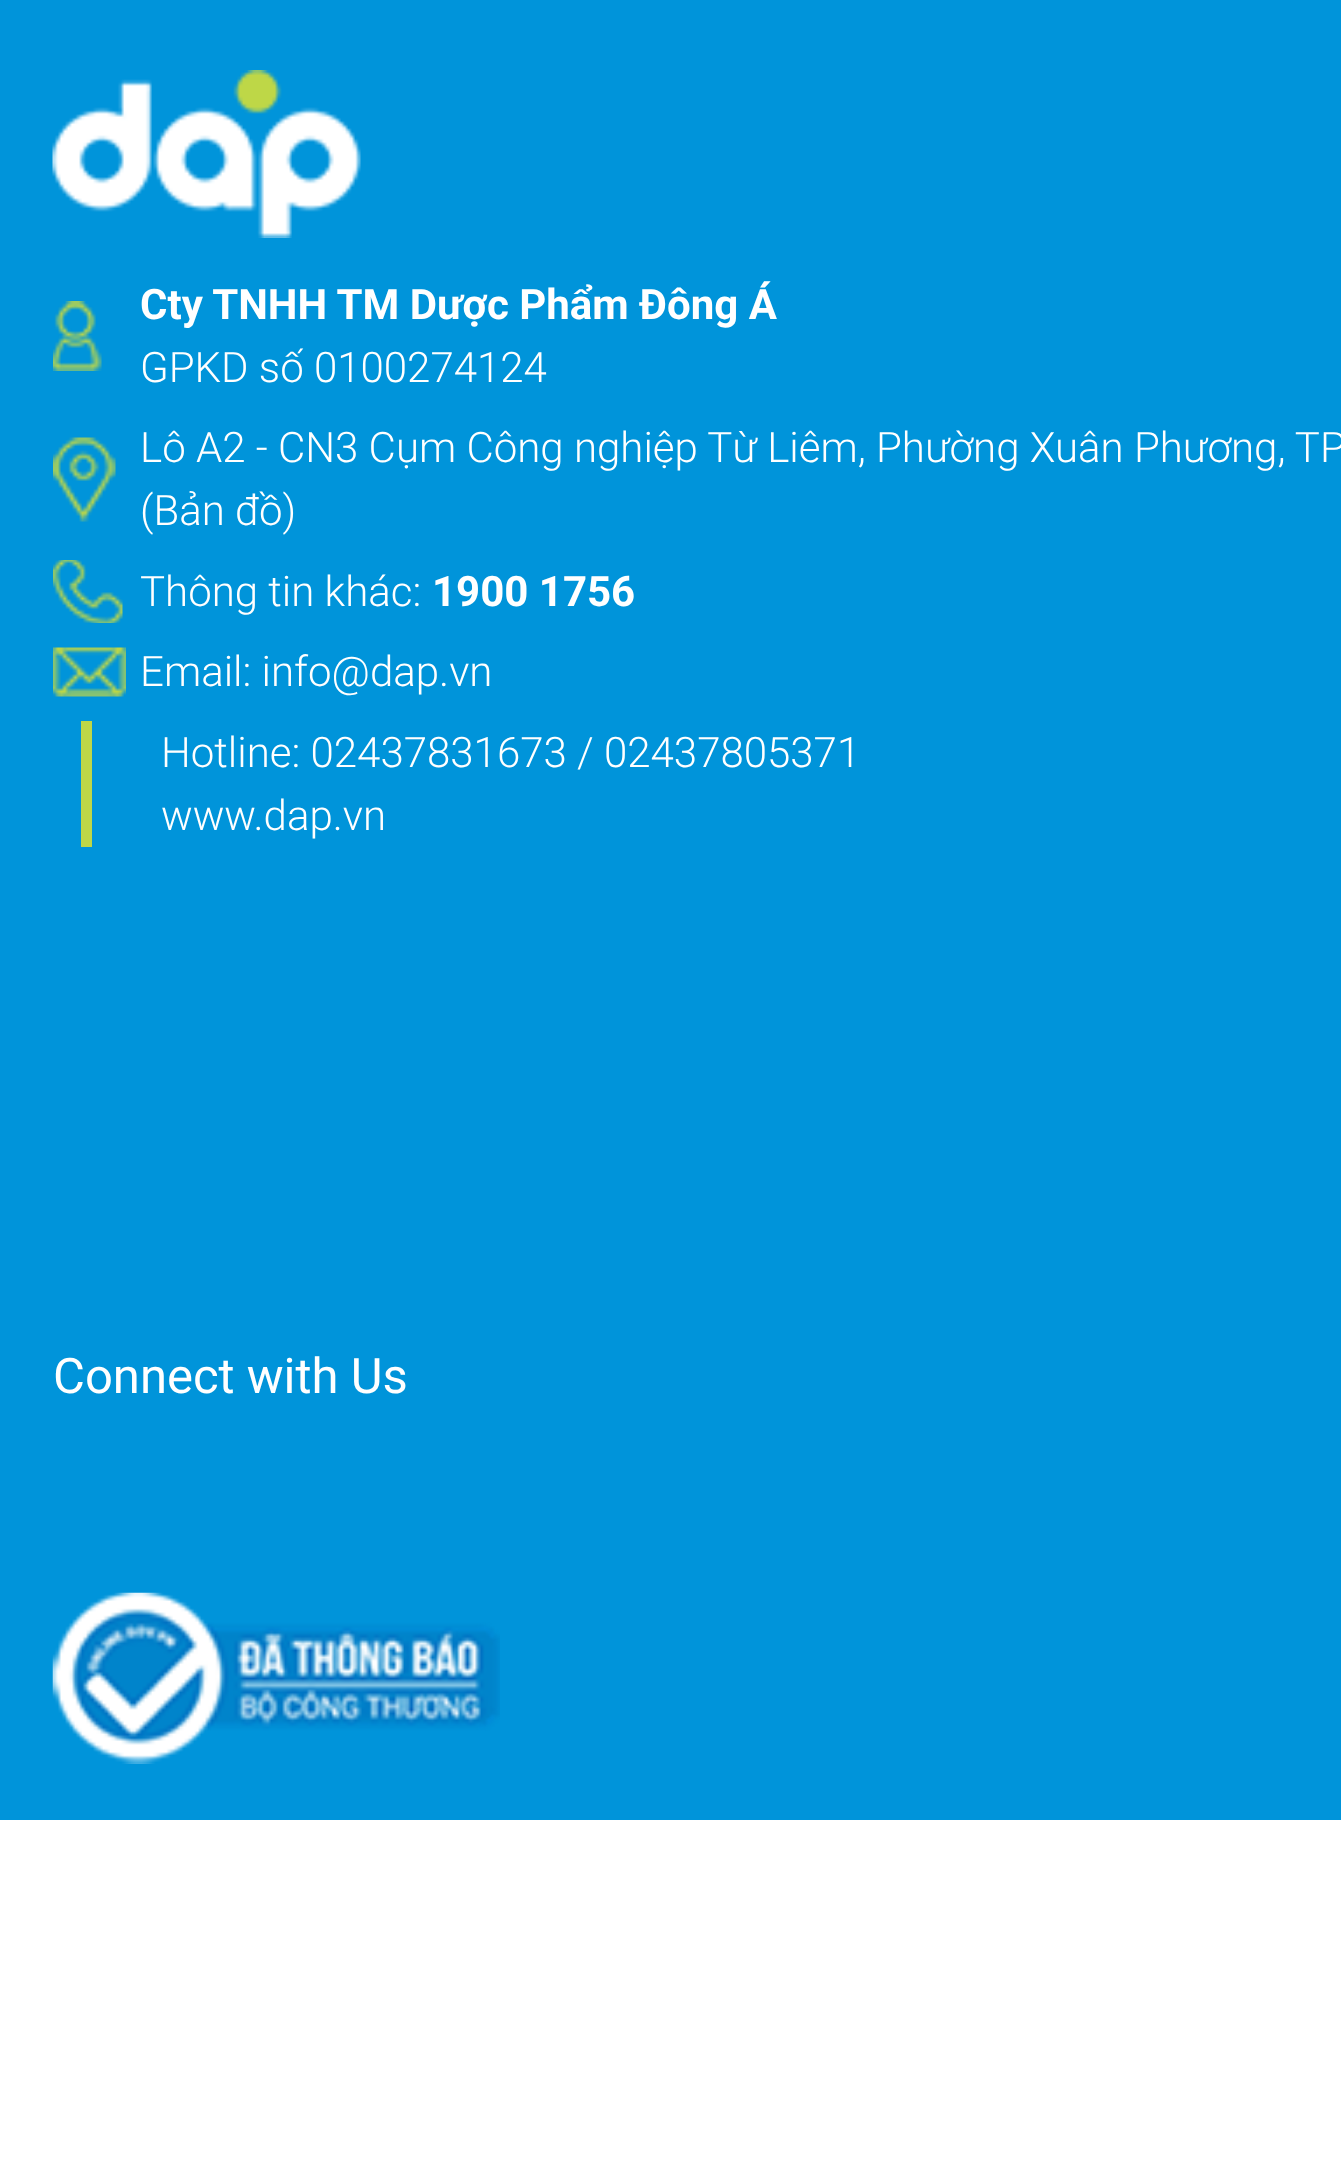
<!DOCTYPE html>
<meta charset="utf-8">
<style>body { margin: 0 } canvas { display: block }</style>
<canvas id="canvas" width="1341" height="2164"></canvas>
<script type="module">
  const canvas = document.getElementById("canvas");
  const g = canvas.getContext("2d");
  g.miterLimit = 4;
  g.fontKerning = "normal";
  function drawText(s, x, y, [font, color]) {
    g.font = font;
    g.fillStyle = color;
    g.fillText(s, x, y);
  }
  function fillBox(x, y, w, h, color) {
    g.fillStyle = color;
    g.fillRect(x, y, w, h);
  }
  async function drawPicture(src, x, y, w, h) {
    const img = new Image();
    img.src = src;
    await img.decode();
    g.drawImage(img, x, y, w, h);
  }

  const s1 = ["bold 42px Roboto", "#FFFFFF"];
  const s2 = ["300 42px Roboto", "#FFFFFF"];
  const s3 = ["49px Roboto", "#FFFFFF"];

  fillBox(0, 0, 1341, 2164, "#FFFFFF");
  fillBox(0, 0, 1341, 1820, "#0094DA");
  await drawPicture("pic1.png", 52, 70, 309, 168);
  await drawPicture("pic2.png", 53, 301, 49, 70);
  drawText("Cty TNHH TM Dược Phẩm Đông Á", 140, 319, s1);
  drawText("GPKD số 0100274124", 140, 382, s2);
  await drawPicture("pic3.png", 53, 437, 63, 85);
  drawText("Lô A2 - CN3 Cụm Công nghiệp Từ Liêm, Phường Xuân Phương, TP", 140, 462, s2);
  drawText("(Bản đồ)", 140, 525, s2);
  await drawPicture("pic4.png", 53, 560, 70, 63);
  drawText("Thông tin khác:", 140, 606, s2);
  drawText("1900 1756", 432, 606, s1);
  await drawPicture("pic5.png", 53, 647, 73, 50);
  drawText("Email: info@dap.vn", 140, 686, s2);
  fillBox(81, 721, 11, 126, "#BED747");
  drawText("Hotline: 02437831673 / 02437805371", 161, 767, s2);
  drawText("www.dap.vn", 161, 830, s2);
  drawText("Connect with Us", 53, 1393, s3);
  await drawPicture("pic6.png", 52, 1592, 448, 172);
</script>
